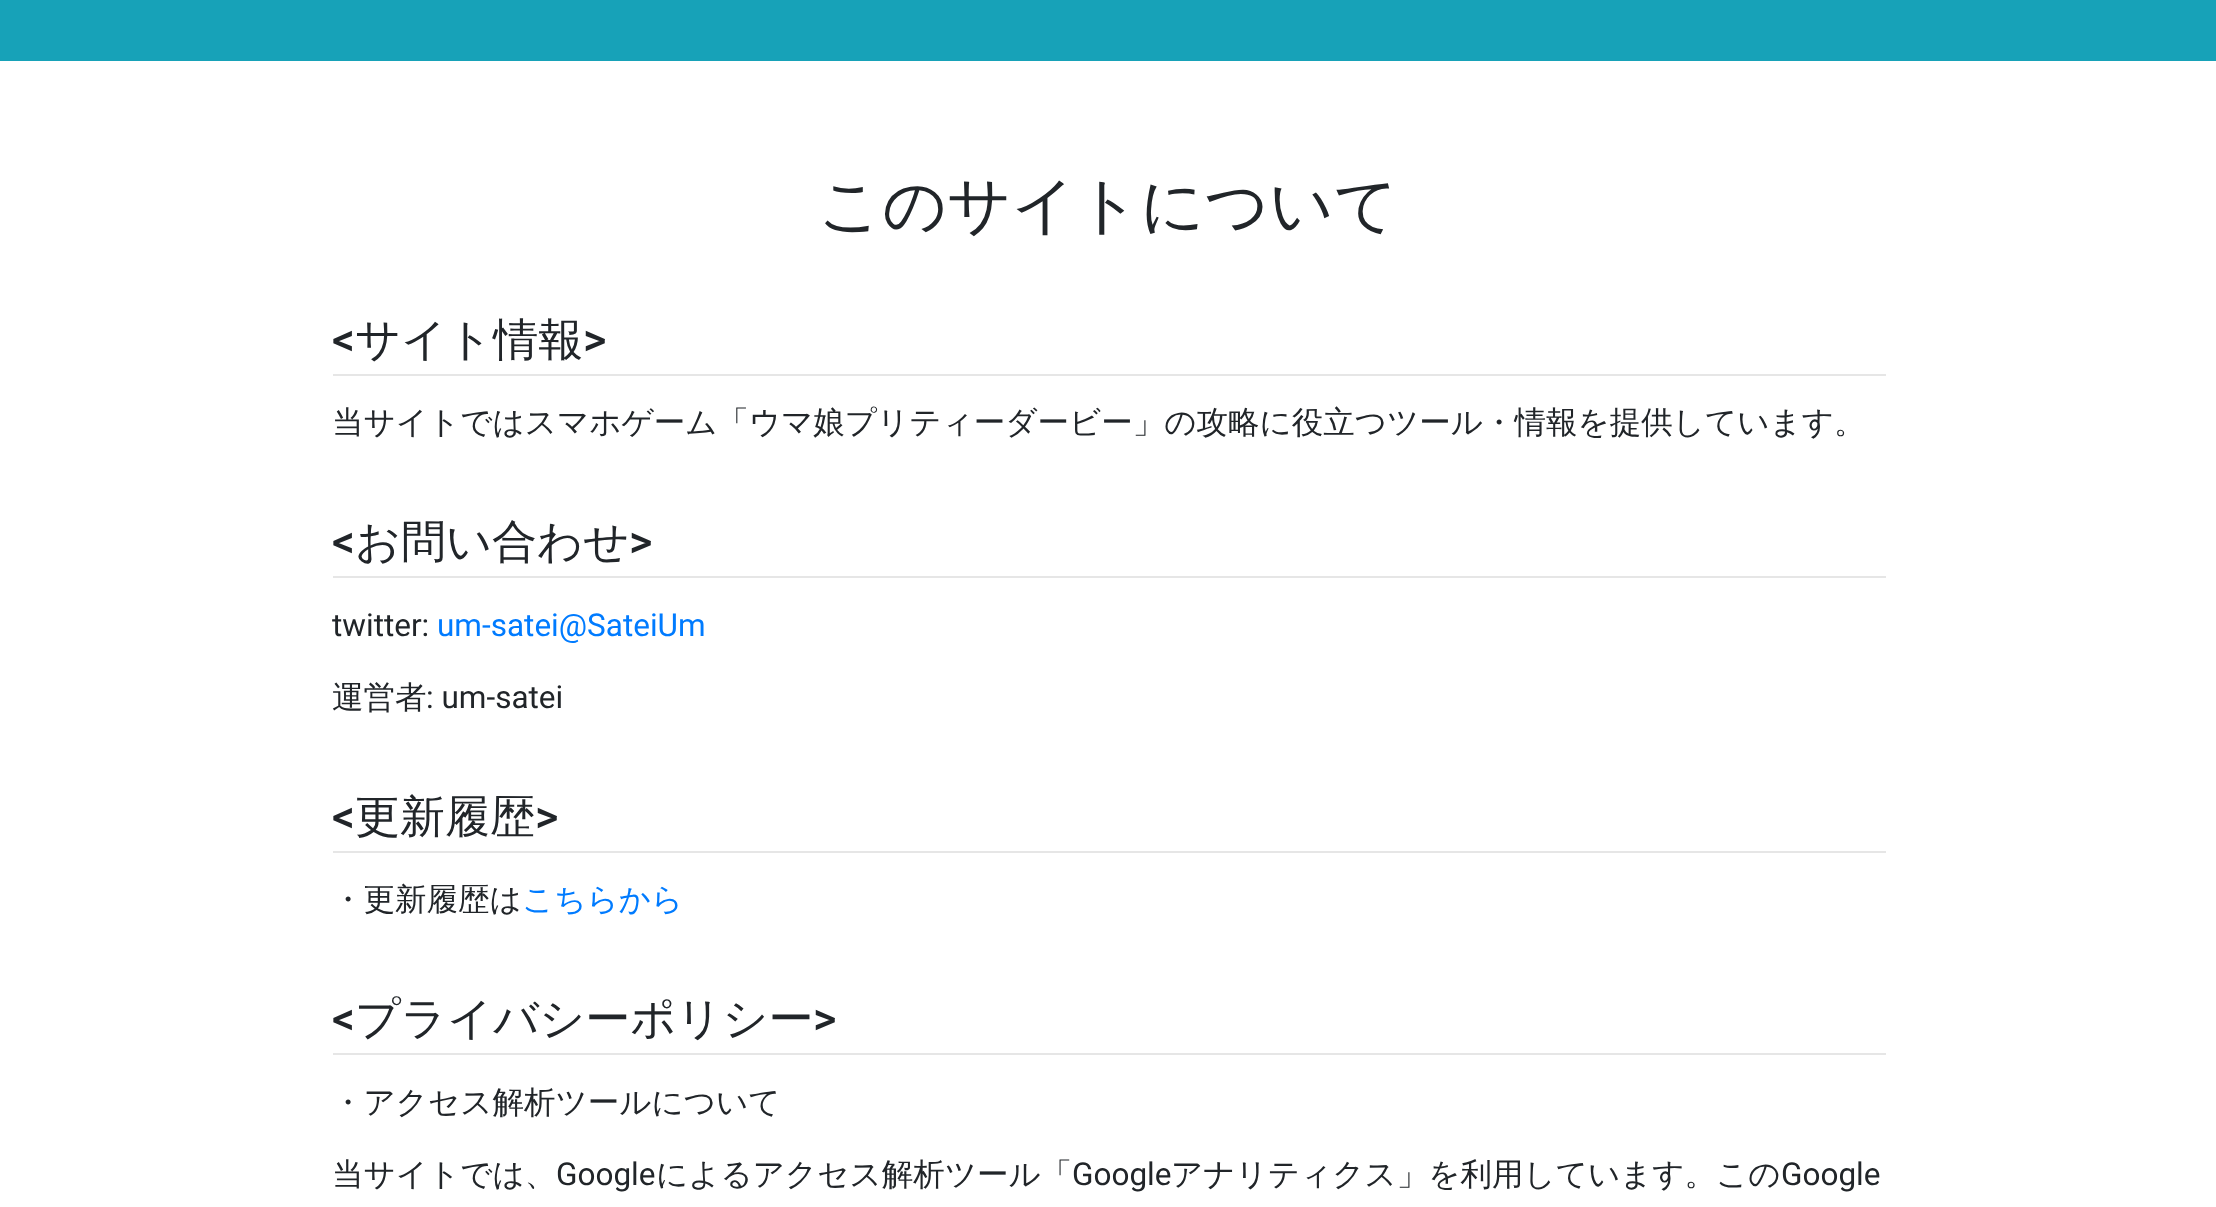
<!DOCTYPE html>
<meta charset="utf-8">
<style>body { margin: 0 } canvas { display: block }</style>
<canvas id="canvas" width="2216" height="1207"></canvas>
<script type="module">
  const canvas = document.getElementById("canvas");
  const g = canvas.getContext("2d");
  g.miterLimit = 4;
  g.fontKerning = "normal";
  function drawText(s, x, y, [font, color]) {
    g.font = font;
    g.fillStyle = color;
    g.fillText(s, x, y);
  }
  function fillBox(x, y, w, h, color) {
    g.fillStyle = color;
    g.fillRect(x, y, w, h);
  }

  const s1 = ["500 63px WenQuanYi Zen Hei", "#212529"];
  const s2 = ["500 45px Roboto", "#212529"];
  const s3 = ["500 45px WenQuanYi Zen Hei", "#212529"];
  const s4 = ["500 31.5px WenQuanYi Zen Hei", "#212529"];
  const s5 = ["31.5px Roboto", "#212529"];
  const s6 = ["31.5px Roboto", "#007BFF"];
  const s7 = ["500 31.5px WenQuanYi Zen Hei", "#007BFF"];

  fillBox(0, 0, 2216, 1207, "#FFFFFF");
  fillBox(0, 0, 2216, 61, "#17A2B8");
  drawText("このサイトについて", 818, 227, s1);
  drawText("<", 332, 355, s2);
  drawText("サイト情報", 355, 355, s3);
  drawText(">", 583, 355, s2);
  fillBox(333, 374, 1553, 2, "#E6E6E6");
  drawText("当サイトではスマホゲーム「ウマ娘プリティーダービー」の攻略に役立つツール・情報を提供しています。", 332, 433, s4);
  drawText("<", 332, 557, s2);
  drawText("お問い合わせ", 355, 557, s3);
  drawText(">", 629, 557, s2);
  fillBox(333, 576, 1553, 2, "#E6E6E6");
  drawText("twitter:", 332, 636, s5);
  drawText("um-satei@SateiUm", 437, 636, s6);
  drawText("運営者", 332, 708, s4);
  drawText(": um-satei", 426, 708, s5);
  drawText("<", 332, 832, s2);
  drawText("更新履歴", 355, 832, s3);
  drawText(">", 535, 832, s2);
  fillBox(333, 851, 1553, 2, "#E6E6E6");
  drawText("・更新履歴は", 332, 910, s4);
  drawText("こちらから", 522, 910, s7);
  drawText("<", 332, 1034, s2);
  drawText("プライバシーポリシー", 355, 1034, s3);
  drawText(">", 813, 1034, s2);
  fillBox(333, 1053, 1553, 2, "#E6E6E6");
  drawText("・アクセス解析ツールについて", 332, 1113, s4);
  drawText("当サイトでは、", 332, 1185, s4);
  drawText("Google", 556, 1185, s5);
  drawText("によるアクセス解析ツール「", 656, 1185, s4);
  drawText("Google", 1072, 1185, s5);
  drawText("アナリティクス」を利用しています。この", 1171, 1185, s4);
  drawText("Google", 1781, 1185, s5);
</script>
